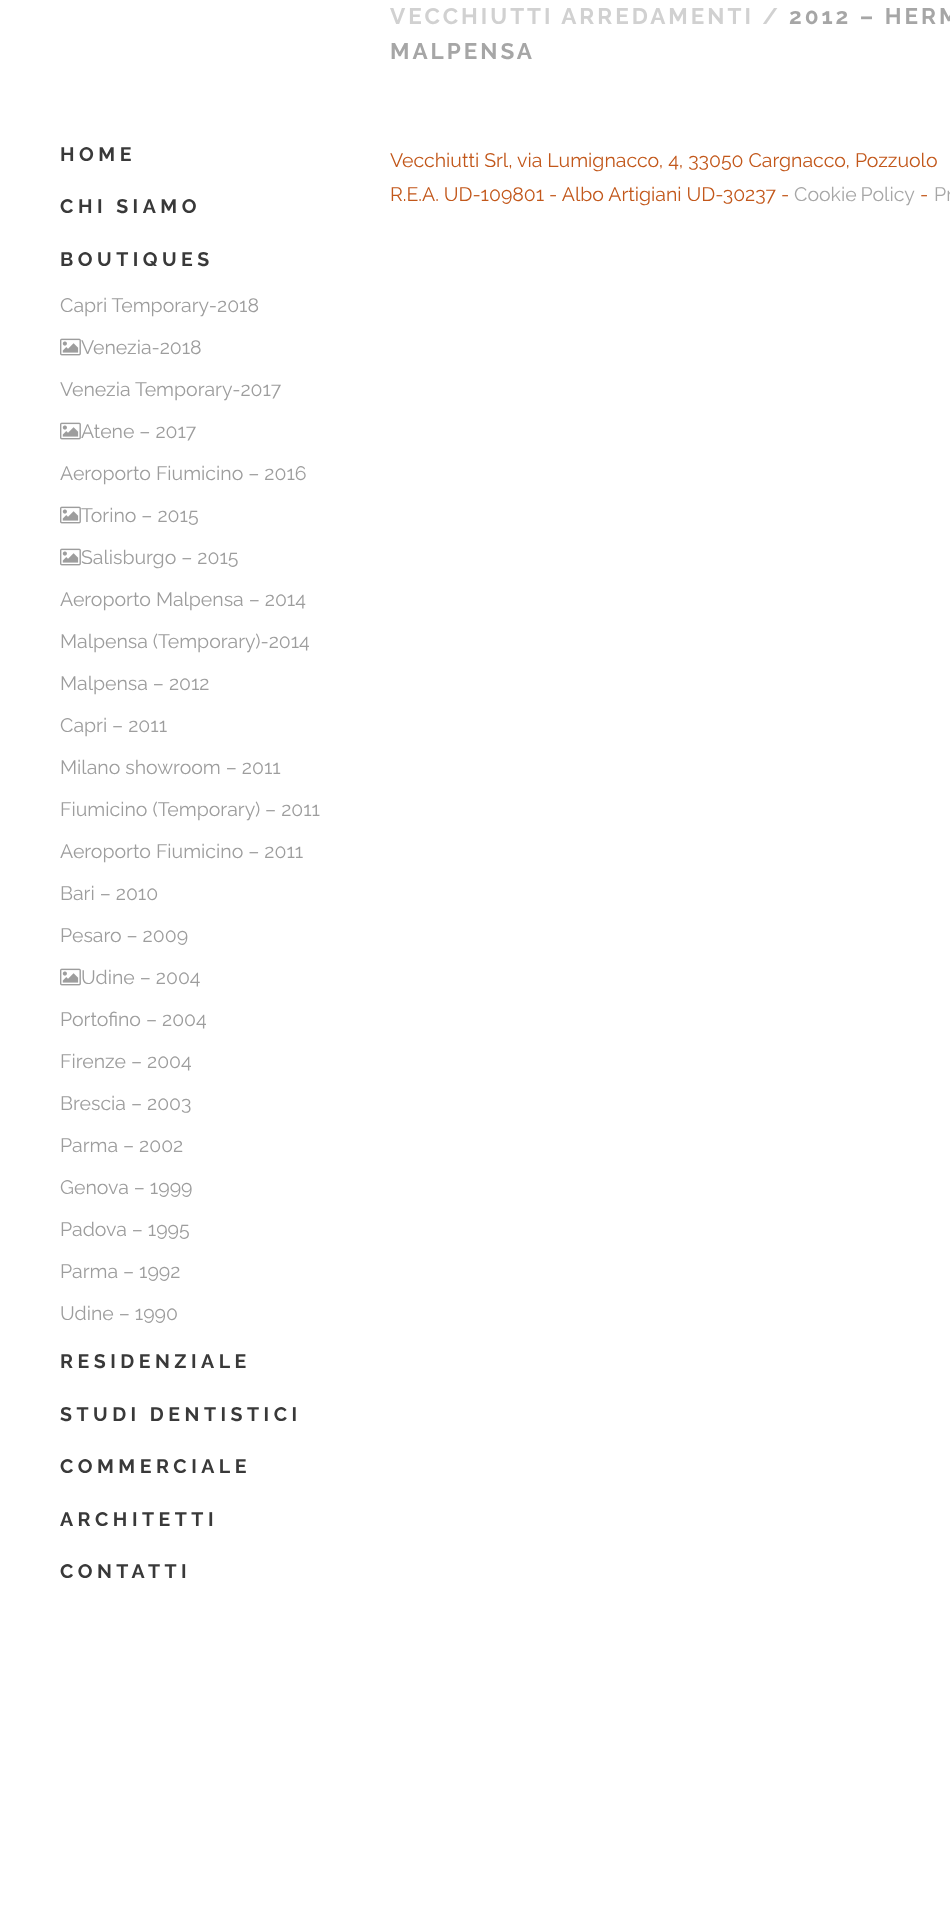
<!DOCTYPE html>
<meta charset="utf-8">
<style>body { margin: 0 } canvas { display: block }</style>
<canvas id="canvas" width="950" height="1925"></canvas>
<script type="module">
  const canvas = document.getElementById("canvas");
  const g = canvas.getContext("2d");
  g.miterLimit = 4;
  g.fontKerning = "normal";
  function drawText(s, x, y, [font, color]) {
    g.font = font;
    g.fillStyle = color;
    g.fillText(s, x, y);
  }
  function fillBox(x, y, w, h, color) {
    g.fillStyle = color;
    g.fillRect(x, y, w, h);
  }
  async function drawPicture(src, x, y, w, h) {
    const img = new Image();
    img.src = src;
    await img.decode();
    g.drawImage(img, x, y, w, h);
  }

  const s1 = ["bold 22.5px Raleway", "#D1D1D1"];
  const s2 = ["bold 22.5px Raleway", "#A6A6A6"];
  const s3 = ["bold 19.5px Raleway", "#393939"];
  const s4 = ["19.5px Raleway", "#9D9D9D"];
  const s5 = ["19.5px Raleway", "#C2571A"];
  const s6 = ["19.5px Raleway", "#A6A6A6"];

  fillBox(0, 0, 950, 1925, "#FFFFFF");
  g.letterSpacing = "3px";
  drawText("VECCHIUTTI ARREDAMENTI /", 390, 24, s1);
  drawText("2012 – HERM", 789, 24, s2);
  drawText("MALPENSA", 390, 59, s2);
  g.letterSpacing = "4.5px";
  drawText("HOME", 60, 161, s3);
  drawText("CHI SIAMO", 60, 213, s3);
  drawText("BOUTIQUES", 60, 266, s3);
  g.letterSpacing = "0px";
  drawText("Capri Temporary-2018", 60, 312, s4);
  await drawPicture("pic1.png", 60, 338, 21, 18);
  drawText("Venezia-2018", 81, 354, s4);
  drawText("Venezia Temporary-2017", 60, 396, s4);
  await drawPicture("pic1.png", 60, 422, 21, 18);
  drawText("Atene – 2017", 81, 438, s4);
  drawText("Aeroporto Fiumicino – 2016", 60, 480, s4);
  await drawPicture("pic1.png", 60, 506, 21, 18);
  drawText("Torino – 2015", 81, 522, s4);
  await drawPicture("pic1.png", 60, 548, 21, 18);
  drawText("Salisburgo – 2015", 81, 564, s4);
  drawText("Aeroporto Malpensa – 2014", 60, 606, s4);
  drawText("Malpensa (Temporary)-2014", 60, 648, s4);
  drawText("Malpensa – 2012", 60, 690, s4);
  drawText("Capri – 2011", 60, 732, s4);
  drawText("Milano showroom – 2011", 60, 774, s4);
  drawText("Fiumicino (Temporary) – 2011", 60, 816, s4);
  drawText("Aeroporto Fiumicino – 2011", 60, 858, s4);
  drawText("Bari – 2010", 60, 900, s4);
  drawText("Pesaro – 2009", 60, 942, s4);
  await drawPicture("pic1.png", 60, 968, 21, 18);
  drawText("Udine – 2004", 81, 984, s4);
  drawText("Portofino – 2004", 60, 1026, s4);
  drawText("Firenze – 2004", 60, 1068, s4);
  drawText("Brescia – 2003", 60, 1110, s4);
  drawText("Parma – 2002", 60, 1152, s4);
  drawText("Genova – 1999", 60, 1194, s4);
  drawText("Padova – 1995", 60, 1236, s4);
  drawText("Parma – 1992", 60, 1278, s4);
  drawText("Udine – 1990", 60, 1320, s4);
  g.letterSpacing = "4.5px";
  drawText("RESIDENZIALE", 60, 1368, s3);
  drawText("STUDI DENTISTICI", 60, 1421, s3);
  drawText("COMMERCIALE", 60, 1473, s3);
  drawText("ARCHITETTI", 60, 1526, s3);
  drawText("CONTATTI", 60, 1578, s3);
  g.letterSpacing = "0px";
  drawText("Vecchiutti Srl, via Lumignacco, 4, 33050 Cargnacco, Pozzuolo", 390, 167, s5);
  drawText("R.E.A. UD-109801 - Albo Artigiani UD-30237 -", 390, 201, s5);
  g.wordSpacing = "-1px";
  drawText("Cookie Policy", 794, 201, s6);
  g.wordSpacing = "0px";
  drawText("-", 920, 201, s5);
  drawText("Pr", 934, 201, s6);
</script>
